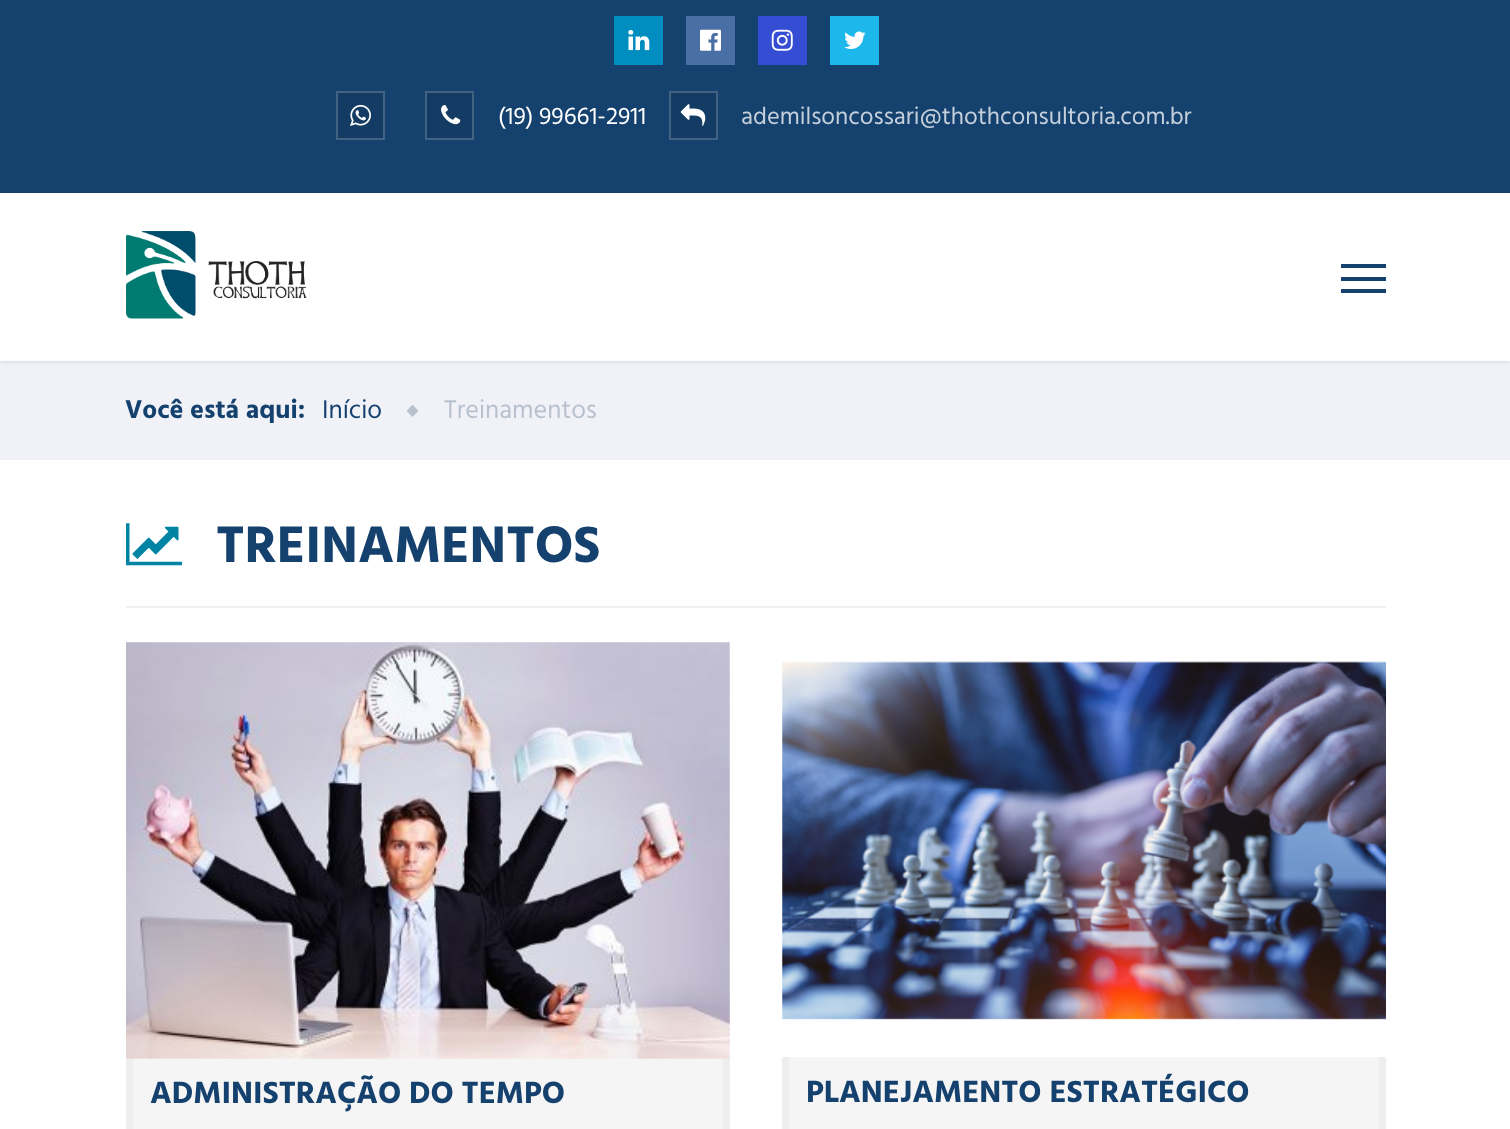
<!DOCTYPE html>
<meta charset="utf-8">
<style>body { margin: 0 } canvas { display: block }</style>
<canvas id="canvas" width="1510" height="1129"></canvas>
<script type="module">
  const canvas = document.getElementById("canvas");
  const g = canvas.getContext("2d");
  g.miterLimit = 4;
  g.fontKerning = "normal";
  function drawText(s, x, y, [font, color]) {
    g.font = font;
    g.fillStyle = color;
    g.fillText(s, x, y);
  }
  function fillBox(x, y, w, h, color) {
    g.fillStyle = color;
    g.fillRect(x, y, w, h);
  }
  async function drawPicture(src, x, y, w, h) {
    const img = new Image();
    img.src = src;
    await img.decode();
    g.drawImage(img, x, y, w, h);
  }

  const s1 = ["24.5px Hind Siliguri", "#FFFFFF"];
  const s2 = ["24.5px Hind Siliguri", "#C5D0DB"];
  const s3 = ["bold 26.25px Hind Siliguri", "#15416E"];
  const s4 = ["26.25px Hind Siliguri", "#15416E"];
  const s5 = ["26.25px Hind Siliguri", "#B9C1CF"];
  const s6 = ["bold 52.5px Hind Vadodara", "#15416E"];
  const s7 = ["bold 31.5px Hind Vadodara", "#15416E"];

  fillBox(0, 0, 1510, 1129, "#FFFFFF");
  fillBox(0, 0, 1510, 193, "#15416E");
  fillBox(614, 16, 49, 49, "#008EC1");
  await drawPicture("pic1.png", 628, 30, 22, 21);
  fillBox(686, 16, 49, 49, "#496FA4");
  await drawPicture("pic2.png", 700, 29, 21, 22);
  fillBox(758, 16, 49, 49, "#354DD3");
  await drawPicture("pic3.png", 771, 29, 22, 22);
  fillBox(830, 16, 49, 49, "#1CB7EB");
  await drawPicture("pic4.png", 844, 31, 22, 18);
  g.fillStyle = "#133B63";
  g.beginPath();
  g.rect(337, 92, 47, 47);
  g.fill();
  g.strokeStyle = "#426282";
  g.lineWidth = 2;
  g.stroke();
  await drawPicture("pic5.png", 350, 104, 21, 22);
  g.beginPath();
  g.rect(426, 92, 47, 47);
  g.fill();
  g.stroke();
  await drawPicture("pic6.png", 441, 105, 20, 20);
  drawText("(19) 99661-2911", 498, 124, s1);
  g.fillStyle = "#133B63";
  g.beginPath();
  g.rect(670, 92, 47, 47);
  g.fill();
  g.stroke();
  await drawPicture("pic7.png", 680, 104, 26, 22);
  drawText("ademilsoncossari@thothconsultoria.com.br", 741, 124, s2);
  fillBox(0, 361, 1510, 99, "#F1F2F8");
  g.save();
  g.beginPath();
  g.moveTo(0, 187);
  g.lineTo(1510, 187);
  g.lineTo(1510, 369);
  g.lineTo(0, 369);
  g.closePath();
  g.moveTo(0, 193);
  g.lineTo(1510, 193);
  g.lineTo(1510, 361);
  g.lineTo(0, 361);
  g.closePath();
  g.clip("evenodd");
  g.fillStyle = "rgba(0, 0, 0, 0.1)";
  g.filter = "blur(2px)";
  g.beginPath();
  g.rect(0, 194, 1510, 168);
  g.fill();
  g.filter = "none";
  g.restore();
  await drawPicture("pic8.png", 126, 231, 181, 88);
  fillBox(1341, 264, 45, 4, "#15416E");
  fillBox(1341, 277, 45, 4, "#15416E");
  fillBox(1341, 289, 45, 4, "#15416E");
  drawText("Você está aqui:", 125, 418, s3);
  drawText("Início", 322, 418, s4);
  g.fillStyle = "#B9C1CF";
  g.beginPath();
  g.moveTo(412.5, 404.5);
  g.lineTo(418.5, 411);
  g.lineTo(412.5, 417);
  g.lineTo(406.5, 411);
  g.closePath();
  g.fill();
  drawText("Treinamentos", 444, 418, s5);
  fillBox(126, 606, 1260, 2, "#EFF0F4");
  await drawPicture("pic9.png", 126, 523, 56, 43);
  drawText("TREINAMENTOS", 216, 562, s6);
  await drawPicture("pic10.png", 126, 642, 604, 417);
  fillBox(133, 1059, 590, 70, "#F5F5F5");
  fillBox(723, 1059, 7, 70, "#EEEEEE");
  fillBox(126, 1059, 7, 70, "#EEEEEE");
  drawText("ADMINISTRAÇÃO DO TEMPO", 150, 1103, s7);
  await drawPicture("pic11.png", 782, 661, 604, 359);
  fillBox(789, 1057, 590, 72, "#F5F5F5");
  fillBox(1379, 1057, 7, 72, "#EEEEEE");
  fillBox(782, 1057, 7, 72, "#EEEEEE");
  drawText("PLANEJAMENTO ESTRATÉGICO", 806, 1102, s7);
</script>
